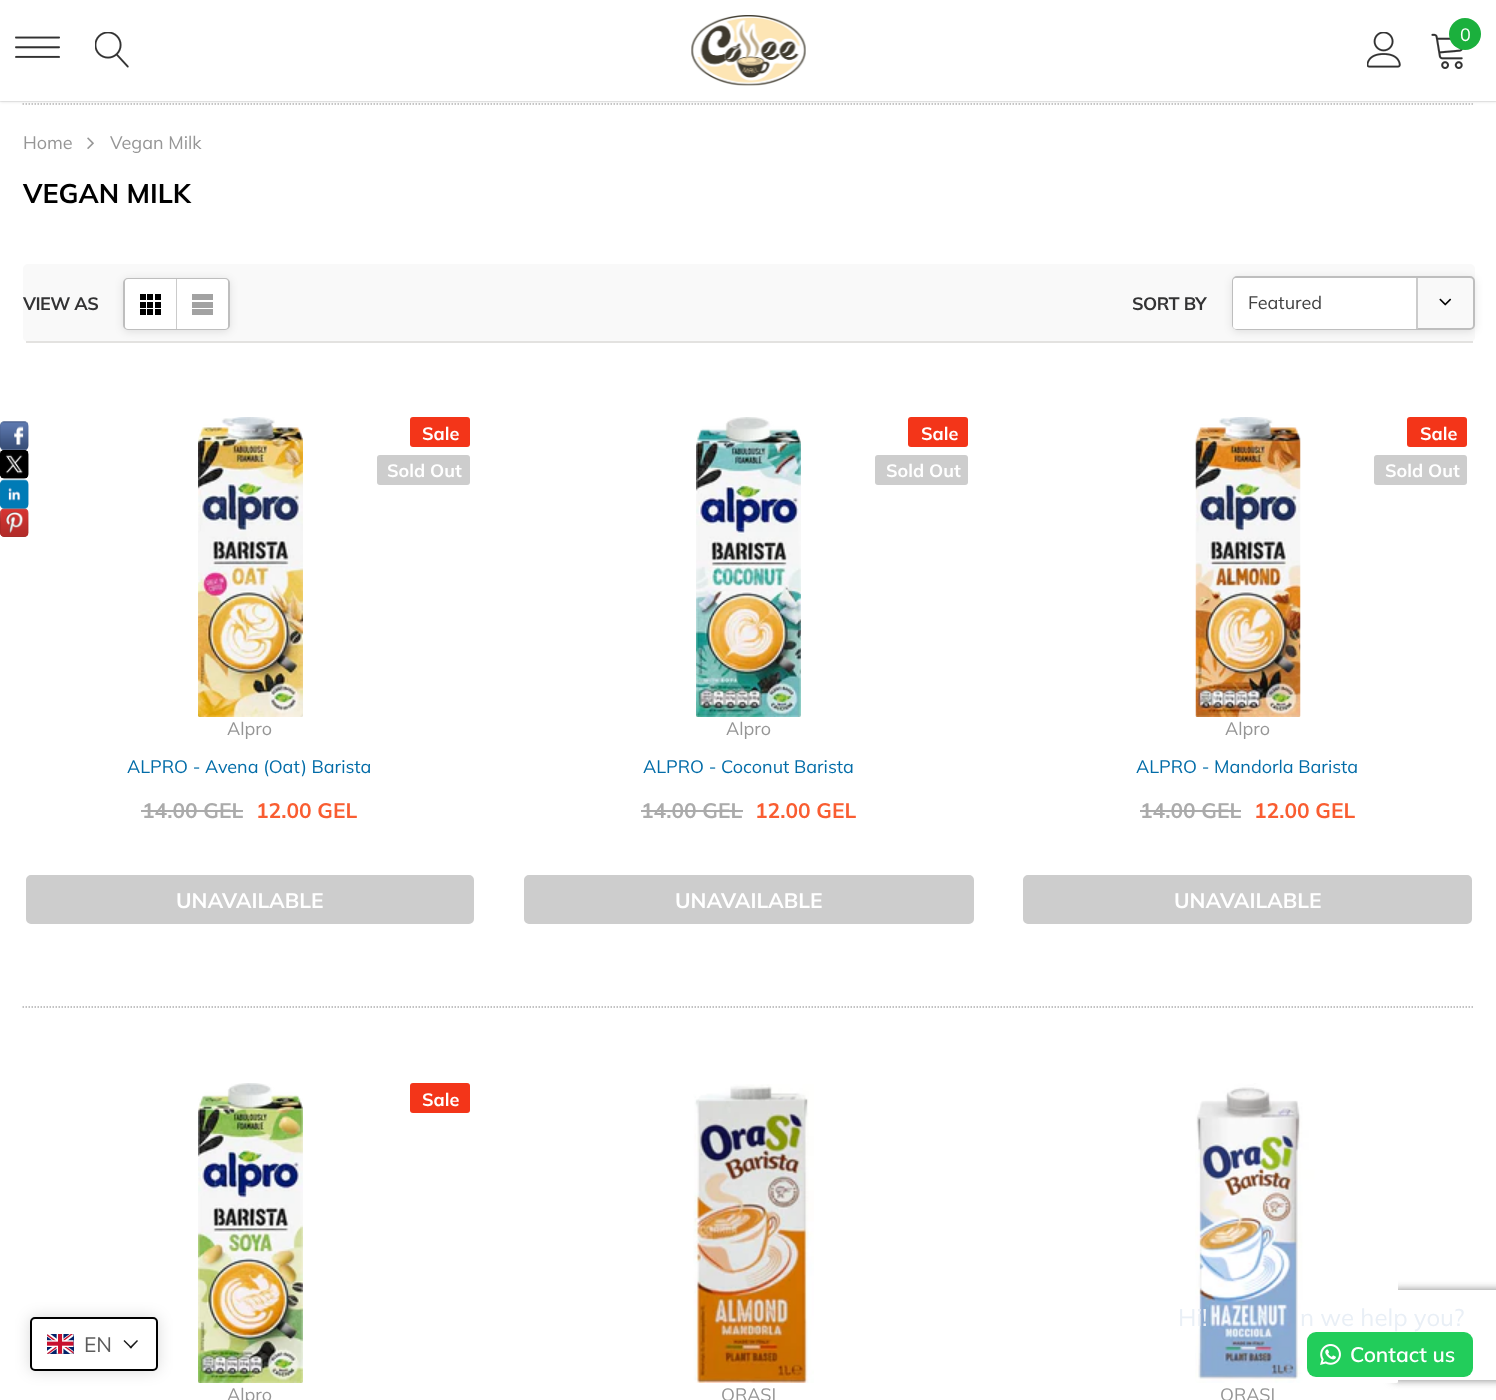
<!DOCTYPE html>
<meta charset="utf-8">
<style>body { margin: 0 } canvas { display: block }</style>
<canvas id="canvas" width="1496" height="1400"></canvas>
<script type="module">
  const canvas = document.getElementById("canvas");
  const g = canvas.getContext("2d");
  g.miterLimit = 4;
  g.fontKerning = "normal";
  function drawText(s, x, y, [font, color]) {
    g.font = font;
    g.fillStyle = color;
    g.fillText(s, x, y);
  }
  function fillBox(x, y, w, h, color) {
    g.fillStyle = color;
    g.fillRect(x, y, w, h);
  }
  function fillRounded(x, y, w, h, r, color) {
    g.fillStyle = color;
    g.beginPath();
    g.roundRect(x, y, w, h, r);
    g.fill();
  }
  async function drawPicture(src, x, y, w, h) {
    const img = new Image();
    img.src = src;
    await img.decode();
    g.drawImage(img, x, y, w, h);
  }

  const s1 = ["18px Mulish", "#FFFFFF"];
  const s2 = ["18px Mulish", "#969696"];
  const s3 = ["bold 27px Mulish", "#000000"];
  const s4 = ["bold 18px Mulish", "#333334"];
  const s5 = ["18px Mulish", "#414141"];
  const s6 = ["bold 18px Mulish", "#FFFFFF"];
  const s7 = ["18px Mulish", "#026CA8"];
  const s8 = ["bold 21px Mulish", "#ABABAB"];
  const s9 = ["bold 21px Mulish", "#F95D31"];
  const s10 = ["bold 21px Mulish", "#FFFFFF"];
  const s11 = ["24px Mulish", "#E9EFF6"];
  const s12 = ["21px Mulish", "#5C5C5C"];
  const s13 = ["600 21px Mulish", "#FFFFFF"];

  fillBox(0, 0, 1496, 1400, "#FFFFFF");
  await drawPicture("pic1.png", 0, 421, 29, 30);
  await drawPicture("pic2.png", 0, 450, 29, 29);
  await drawPicture("pic3.png", 0, 479, 29, 30);
  await drawPicture("pic4.png", 0, 508, 29, 29);
  g.beginPath();
  g.moveTo(22.5, 104);
  g.lineTo(1474.5, 104);
  g.strokeStyle = "#B7B7B7";
  g.lineWidth = 1.5;
  g.setLineDash([1.5, 1.5]);
  g.stroke();
  g.fillStyle = "rgba(0, 0, 0, 0.1)";
  g.filter = "blur(1.5px)";
  g.beginPath();
  g.rect(0, 2, 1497, 100);
  g.fill();
  g.filter = "none";
  g.strokeStyle = "rgba(0, 0, 0, 0.06)";
  g.lineWidth = 2;
  g.setLineDash([]);
  g.strokeRect(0, 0, 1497, 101);
  fillBox(0, 0, 1496, 101, "#FFFFFF");
  await drawPicture("pic5.png", 15, 36, 45, 22);
  await drawPicture("pic6.png", 95, 32, 34, 36);
  await drawPicture("pic7.png", 691, 15, 115, 71);
  await drawPicture("pic8.png", 1367, 32, 34, 36);
  await drawPicture("pic9.png", 1431, 33, 32, 36);
  g.fillStyle = "#1BB03D";
  g.beginPath();
  g.arc(1465, 34, 16, 0, Math.PI * 2);
  g.fill();
  g.letterSpacing = "-0.5px";
  drawText("0", 1460, 41, s1);
  g.letterSpacing = "0px";
  drawText("Home", 23, 149, s2);
  await drawPicture("pic10.png", 87, 137, 7, 12);
  drawText("Vegan Milk", 110, 149, s2);
  drawText("VEGAN MILK", 23, 203, s3);
  fillRounded(23, 264, 1452, 78, 5, "#F9F9F9");
  fillBox(26, 341, 1447, 2, "#E3E2E0");
  g.letterSpacing = "-0.5px";
  drawText("VIEW AS", 23, 310, s4);
  g.fillStyle = "rgba(0, 0, 0, 0.1)";
  g.filter = "blur(4px)";
  g.beginPath();
  g.roundRect(123, 279, 107, 53, 5);
  g.fill();
  g.filter = "none";
  g.beginPath();
  g.roundRect(124, 279, 105, 50, 4);
  g.strokeStyle = "#BEBEBE";
  g.stroke();
  g.fillStyle = "#FFFFFF";
  g.beginPath();
  g.roundRect(125, 279, 52, 50, [3, 0, 0, 3]);
  g.fill();
  fillBox(176, 279, 1, 50, "#CBCBCB");
  fillBox(147, 294, 6, 6, "#000000");
  fillBox(140, 294, 6, 6, "#000000");
  fillBox(155, 294, 6, 6, "#000000");
  fillBox(147, 302, 6, 6, "#000000");
  fillBox(140, 302, 6, 6, "#000000");
  fillBox(155, 302, 6, 6, "#000000");
  fillBox(147, 309, 6, 6, "#000000");
  fillBox(140, 309, 6, 6, "#000000");
  fillBox(155, 309, 6, 6, "#000000");
  g.fillStyle = "#FFFFFF";
  g.beginPath();
  g.roundRect(177, 279, 51, 50, [0, 3, 3, 0]);
  g.fill();
  fillBox(192, 294, 21, 6, "#A2A2A2");
  fillBox(192, 302, 21, 6, "#A2A2A2");
  fillBox(192, 309, 21, 6, "#A2A2A2");
  drawText("SORT BY", 1132, 310, s4);
  g.save();
  g.beginPath();
  g.moveTo(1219, 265);
  g.lineTo(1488, 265);
  g.lineTo(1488, 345);
  g.lineTo(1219, 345);
  g.closePath();
  g.moveTo(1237, 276);
  g.lineTo(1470, 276);
  g.bezierCurveTo(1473, 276, 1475, 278, 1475, 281);
  g.lineTo(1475, 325);
  g.bezierCurveTo(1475, 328, 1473, 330, 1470, 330);
  g.lineTo(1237, 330);
  g.bezierCurveTo(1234, 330, 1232, 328, 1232, 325);
  g.lineTo(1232, 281);
  g.bezierCurveTo(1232, 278, 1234, 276, 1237, 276);
  g.closePath();
  g.clip("evenodd");
  g.fillStyle = "rgba(0, 0, 0, 0.1)";
  g.filter = "blur(4px)";
  g.beginPath();
  g.roundRect(1232, 278, 243, 54, 5);
  g.fill();
  g.filter = "none";
  g.restore();
  g.beginPath();
  g.roundRect(1233, 277, 241, 52, 4);
  g.stroke();
  g.fillStyle = "#FFFFFF";
  g.beginPath();
  g.roundRect(1233, 278, 183, 51, [3, 0, 0, 3]);
  g.fill();
  g.letterSpacing = "0px";
  drawText("Featured", 1248, 309, s5);
  fillBox(1416, 278, 2, 51, "#CBCBCB");
  await drawPicture("pic11.png", 1439, 298, 13, 8);
  await drawPicture("pic12.png", 198, 417, 105, 300);
  fillRounded(410, 417, 60, 30, 3, "#F33519");
  drawText("Sale", 422, 440, s6);
  fillRounded(377, 455, 93, 30, 3, "#CDCDCD");
  drawText("Sold Out", 387, 477, s6);
  drawText("Alpro", 227, 735, s2);
  drawText("ALPRO - Avena (Oat) Barista", 127, 773, s7);
  drawText("14.00 GEL", 142, 818, s8);
  fillBox(141, 810, 102, 2, "#ABABAB");
  drawText("12.00 GEL", 256, 818, s9);
  g.fillStyle = "#CDCDCD";
  g.beginPath();
  g.roundRect(27, 876, 446, 47, 4);
  g.fill();
  g.strokeStyle = "#CDCDCD";
  g.stroke();
  drawText("UNAVAILABLE", 176, 908, s10);
  await drawPicture("pic13.png", 696, 417, 105, 300);
  fillRounded(908, 417, 60, 30, 3, "#F33519");
  drawText("Sale", 921, 440, s6);
  fillRounded(875, 455, 93, 30, 3, "#CDCDCD");
  drawText("Sold Out", 886, 477, s6);
  drawText("Alpro", 726, 735, s2);
  drawText("ALPRO - Coconut Barista", 643, 773, s7);
  drawText("14.00 GEL", 641, 818, s8);
  fillBox(641, 810, 102, 2, "#ABABAB");
  drawText("12.00 GEL", 755, 818, s9);
  g.fillStyle = "#CDCDCD";
  g.beginPath();
  g.roundRect(525, 876, 448, 47, 4);
  g.fill();
  g.stroke();
  drawText("UNAVAILABLE", 675, 908, s10);
  await drawPicture("pic14.png", 1195, 417, 106, 300);
  fillRounded(1407, 417, 60, 30, 3, "#F33519");
  drawText("Sale", 1420, 440, s6);
  fillRounded(1374, 455, 93, 30, 3, "#CDCDCD");
  drawText("Sold Out", 1385, 477, s6);
  drawText("Alpro", 1225, 735, s2);
  drawText("ALPRO - Mandorla Barista", 1136, 773, s7);
  drawText("14.00 GEL", 1140, 818, s8);
  fillBox(1140, 810, 101, 2, "#ABABAB");
  drawText("12.00 GEL", 1254, 818, s9);
  g.fillStyle = "#CDCDCD";
  g.beginPath();
  g.roundRect(1024, 876, 447, 47, 4);
  g.fill();
  g.stroke();
  drawText("UNAVAILABLE", 1174, 908, s10);
  g.beginPath();
  g.moveTo(22.5, 1007);
  g.lineTo(1474.5, 1007);
  g.strokeStyle = "#AFAFB0";
  g.lineWidth = 1.5;
  g.setLineDash([1.5, 1.5]);
  g.stroke();
  await drawPicture("pic15.png", 198, 1083, 105, 300);
  fillRounded(410, 1083, 60, 30, 3, "#F33519");
  drawText("Sale", 422, 1106, s6);
  drawText("Alpro", 227, 1401, s2);
  await drawPicture("pic16.png", 693, 1084, 121, 299);
  drawText("ORASI", 721, 1401, s2);
  g.save();
  g.beginPath();
  g.moveTo(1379, 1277);
  g.lineTo(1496, 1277);
  g.lineTo(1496, 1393);
  g.lineTo(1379, 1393);
  g.closePath();
  g.moveTo(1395, 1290);
  g.lineTo(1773, 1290);
  g.bezierCurveTo(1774.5, 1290, 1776, 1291.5, 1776, 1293);
  g.lineTo(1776, 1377);
  g.bezierCurveTo(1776, 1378.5, 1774.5, 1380, 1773, 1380);
  g.lineTo(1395, 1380);
  g.bezierCurveTo(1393.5, 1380, 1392, 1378.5, 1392, 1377);
  g.lineTo(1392, 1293);
  g.bezierCurveTo(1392, 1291.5, 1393.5, 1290, 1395, 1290);
  g.closePath();
  g.clip("evenodd");
  g.fillStyle = "#808080";
  g.filter = "blur(4px)";
  g.beginPath();
  g.roundRect(1392, 1290, 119, 90, 3);
  g.fill();
  g.filter = "none";
  g.restore();
  await drawPicture("pic17.png", 1195, 1083, 203, 300);
  drawText("ORASI", 1220, 1401, s2);
  await drawPicture("pic18.png", 0, 421, 29, 30);
  await drawPicture("pic19.png", 0, 450, 29, 29);
  await drawPicture("pic20.png", 0, 479, 29, 30);
  await drawPicture("pic21.png", 0, 508, 29, 29);
  drawText("Hi!", 1178, 1326, s11);
  drawText("n we help you?", 1300, 1326, s11);
  g.fillStyle = "rgba(0, 0, 0, 0.15)";
  g.filter = "blur(7.5px)";
  g.beginPath();
  g.roundRect(30, 1317, 128, 54, 5);
  g.fill();
  g.filter = "none";
  g.fillStyle = "#FFFFFF";
  g.beginPath();
  g.roundRect(31, 1318, 126, 52, 4);
  g.fill();
  g.strokeStyle = "#000000";
  g.lineWidth = 2;
  g.setLineDash([]);
  g.stroke();
  await drawPicture("pic22.png", 47, 1334, 27, 20);
  drawText("EN", 84, 1352, s12);
  g.fillStyle = "#1A1A1A";
  g.beginPath();
  g.moveTo(137, 1340);
  g.lineTo(138, 1341);
  g.lineTo(131, 1348.5);
  g.lineTo(129.5, 1347.5);
  g.closePath();
  g.fill();
  g.beginPath();
  g.moveTo(124.5, 1340);
  g.lineTo(132, 1347.5);
  g.lineTo(131, 1348.5);
  g.lineTo(123.5, 1341);
  g.closePath();
  g.fill();
  fillRounded(1307, 1332, 166, 45, 9, "#22CD5B");
  await drawPicture("pic23.png", 1320, 1344, 21, 21);
  drawText("Contact us", 1350, 1362, s13);
</script>
